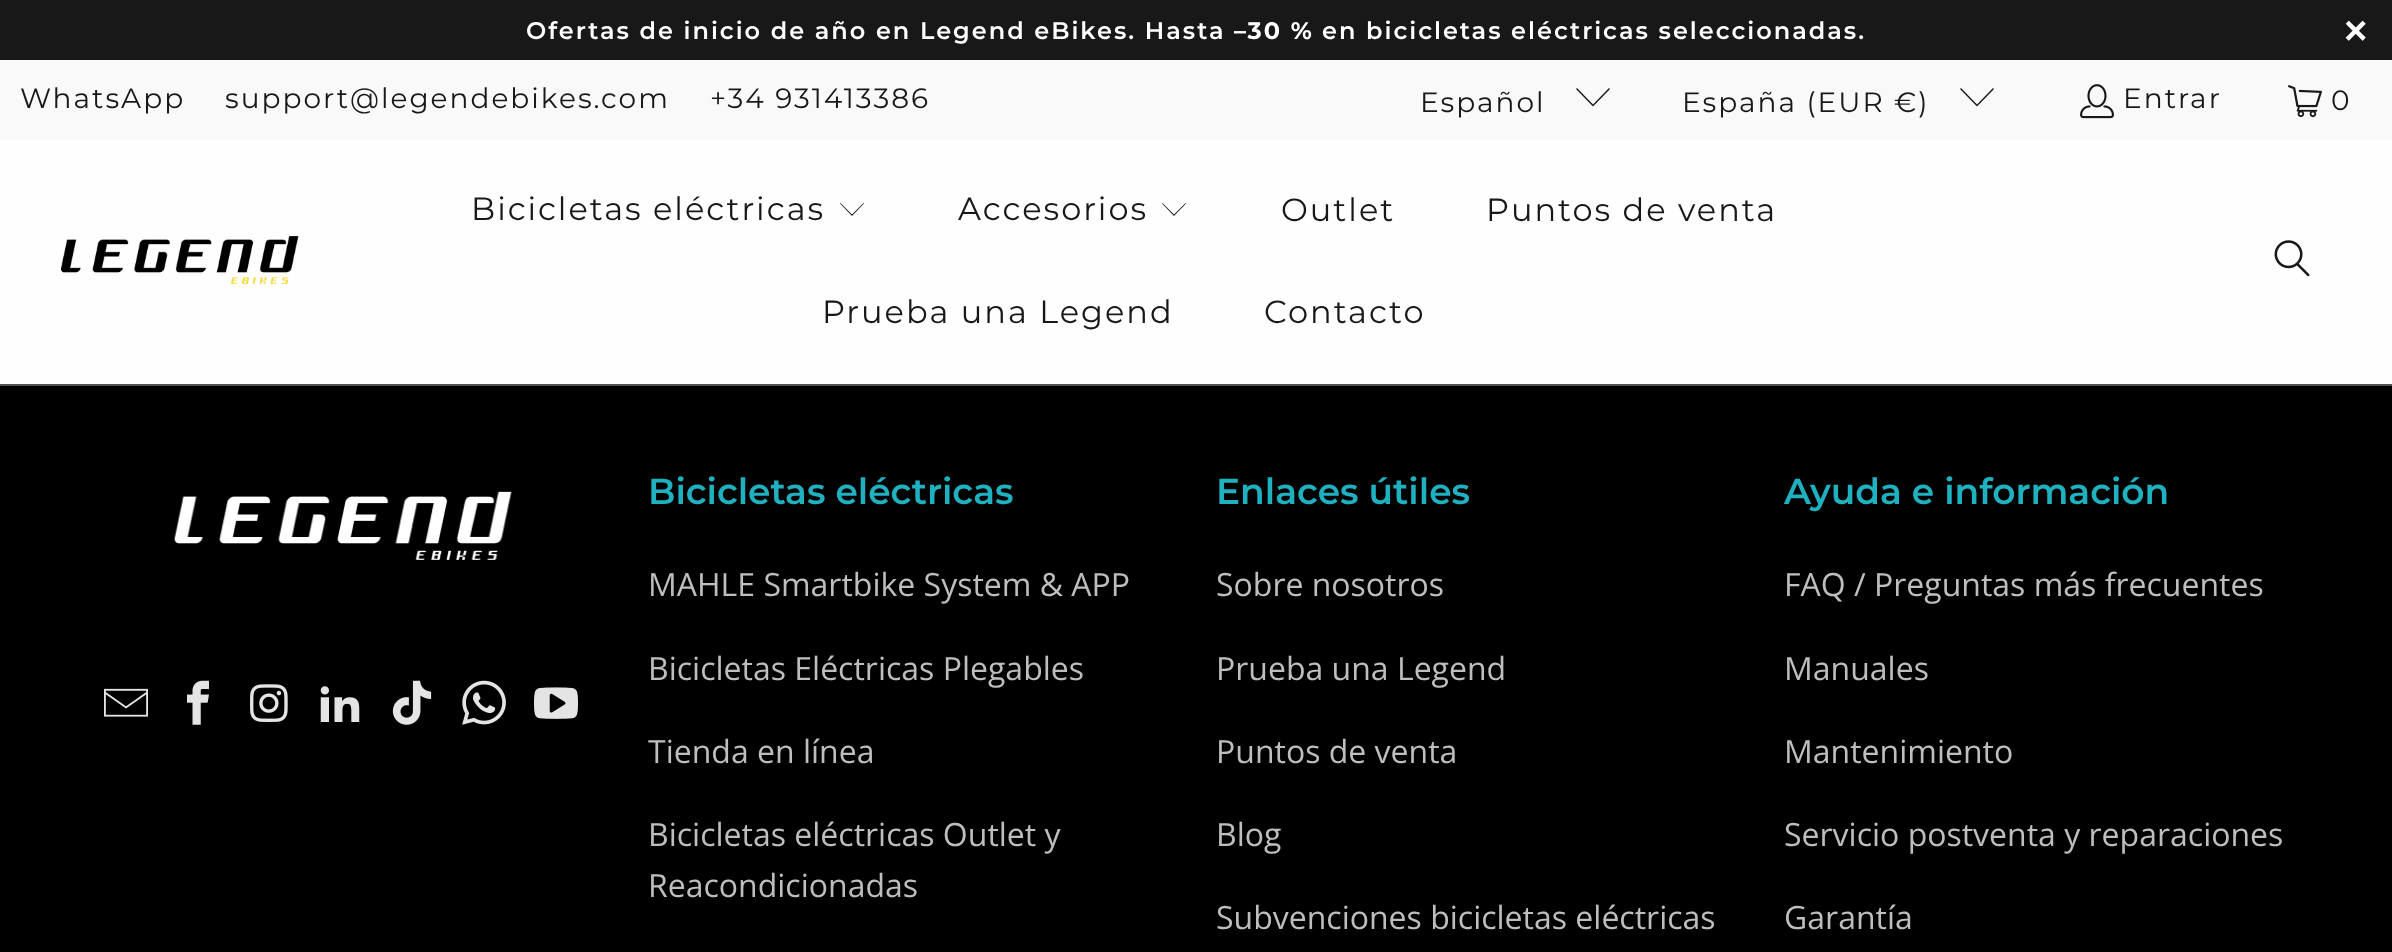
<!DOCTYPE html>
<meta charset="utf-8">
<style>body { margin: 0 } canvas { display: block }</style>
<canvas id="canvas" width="2392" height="952"></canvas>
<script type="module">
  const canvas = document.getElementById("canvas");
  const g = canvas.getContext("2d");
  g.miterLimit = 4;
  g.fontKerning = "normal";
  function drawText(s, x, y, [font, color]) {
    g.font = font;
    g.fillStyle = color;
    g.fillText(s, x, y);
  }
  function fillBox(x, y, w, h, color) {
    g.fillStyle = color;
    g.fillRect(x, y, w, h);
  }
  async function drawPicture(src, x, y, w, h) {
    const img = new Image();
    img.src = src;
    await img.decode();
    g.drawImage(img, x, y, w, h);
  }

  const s1 = ["600 24px Montserrat", "#FFFFFF"];
  const s2 = ["bold 24px Montserrat", "#FFFFFF"];
  const s3 = ["bold 40px Liberation Sans", "#FFFFFF"];
  const s4 = ["28px Montserrat", "#181818"];
  const s5 = ["32px Montserrat", "#181818"];
  const s6 = ["600 36px Montserrat", "#1FB1C0"];
  const s7 = ["32px Open Sans", "#BFBDBD"];

  fillBox(0, 0, 2392, 952, "#F9F9F9");
  fillBox(0, 0, 2392, 60, "#181818");
  g.letterSpacing = "2px";
  drawText("Ofertas de inicio de año en Legend eBikes. Hasta", 526, 39, s1);
  drawText("–30 %", 1234, 39, s2);
  drawText("en bicicletas eléctricas seleccionadas.", 1322, 39, s1);
  drawText("×", 2344, 44, s3);
  drawText("WhatsApp", 20, 108, s4);
  drawText("support@legendebikes.com", 225, 108, s4);
  drawText("+34 931413386", 710, 108, s4);
  drawText("Español", 1420, 112, s4);
  g.beginPath();
  g.moveTo(1593, 106.5);
  g.lineTo(1576, 89);
  g.lineTo(1577, 88);
  g.lineTo(1593, 104.5);
  g.lineTo(1609, 88);
  g.lineTo(1610, 89);
  g.closePath();
  g.fill();
  drawText("España (EUR €)", 1682, 112, s4);
  g.beginPath();
  g.moveTo(1977, 106.5);
  g.lineTo(1960, 89);
  g.lineTo(1961, 88);
  g.lineTo(1977, 104.5);
  g.lineTo(1993, 88);
  g.lineTo(1994, 89);
  g.closePath();
  g.fill();
  await drawPicture("pic1.png", 2080, 84, 34, 35);
  drawText("Entrar", 2123, 108, s4);
  await drawPicture("pic2.png", 2288, 85, 34, 33);
  drawText("0", 2331, 110, s4);
  fillBox(0, 140, 2392, 244, "#FEFEFE");
  await drawPicture("pic3.png", 61, 236, 238, 48);
  drawText("Bicicletas eléctricas", 471, 220, s5);
  g.beginPath();
  g.moveTo(852, 216);
  g.lineTo(840, 203.5);
  g.lineTo(840.5, 203);
  g.lineTo(852, 214.5);
  g.lineTo(863.5, 203);
  g.lineTo(864, 203.5);
  g.closePath();
  g.fill();
  drawText("Accesorios", 958, 220, s5);
  g.beginPath();
  g.moveTo(1174, 216);
  g.lineTo(1162, 203.5);
  g.lineTo(1162.5, 203);
  g.lineTo(1174, 214.5);
  g.lineTo(1185.5, 203);
  g.lineTo(1186, 203.5);
  g.closePath();
  g.fill();
  drawText("Outlet", 1281, 221, s5);
  drawText("Puntos de venta", 1486, 221, s5);
  drawText("Prueba una Legend", 822, 323, s5);
  drawText("Contacto", 1264, 323, s5);
  await drawPicture("pic4.png", 2274, 240, 36, 37);
  fillBox(0, 386, 2392, 566, "#000000");
  fillBox(0, 384, 2392, 2, "#515151");
  await drawPicture("pic5.png", 174, 491, 338, 69);
  await drawPicture("pic6.png", 104, 688, 44, 29);
  await drawPicture("pic7.png", 187, 680, 22, 45);
  await drawPicture("pic8.png", 250, 684, 38, 38);
  await drawPicture("pic9.png", 320, 686, 40, 36);
  await drawPicture("pic10.png", 392, 680, 40, 45);
  await drawPicture("pic11.png", 462, 680, 44, 45);
  await drawPicture("pic12.png", 534, 687, 44, 32);
  g.letterSpacing = "0px";
  drawText("Bicicletas eléctricas", 648, 504, s6);
  drawText("MAHLE Smartbike System & APP", 648, 596, s7);
  drawText("Bicicletas Eléctricas Plegables", 648, 680, s7);
  drawText("Tienda en línea", 648, 763, s7);
  drawText("Bicicletas eléctricas Outlet y", 648, 846, s7);
  drawText("Reacondicionadas", 648, 897, s7);
  drawText("Enlaces útiles", 1216, 504, s6);
  drawText("Sobre nosotros", 1216, 596, s7);
  drawText("Prueba una Legend", 1216, 680, s7);
  drawText("Puntos de venta", 1216, 763, s7);
  drawText("Blog", 1216, 846, s7);
  drawText("Subvenciones bicicletas eléctricas", 1216, 929, s7);
  drawText("Ayuda e información", 1784, 504, s6);
  drawText("FAQ / Preguntas más frecuentes", 1784, 596, s7);
  drawText("Manuales", 1784, 680, s7);
  drawText("Mantenimiento", 1784, 763, s7);
  drawText("Servicio postventa y reparaciones", 1784, 846, s7);
  drawText("Garantía", 1784, 929, s7);
</script>
